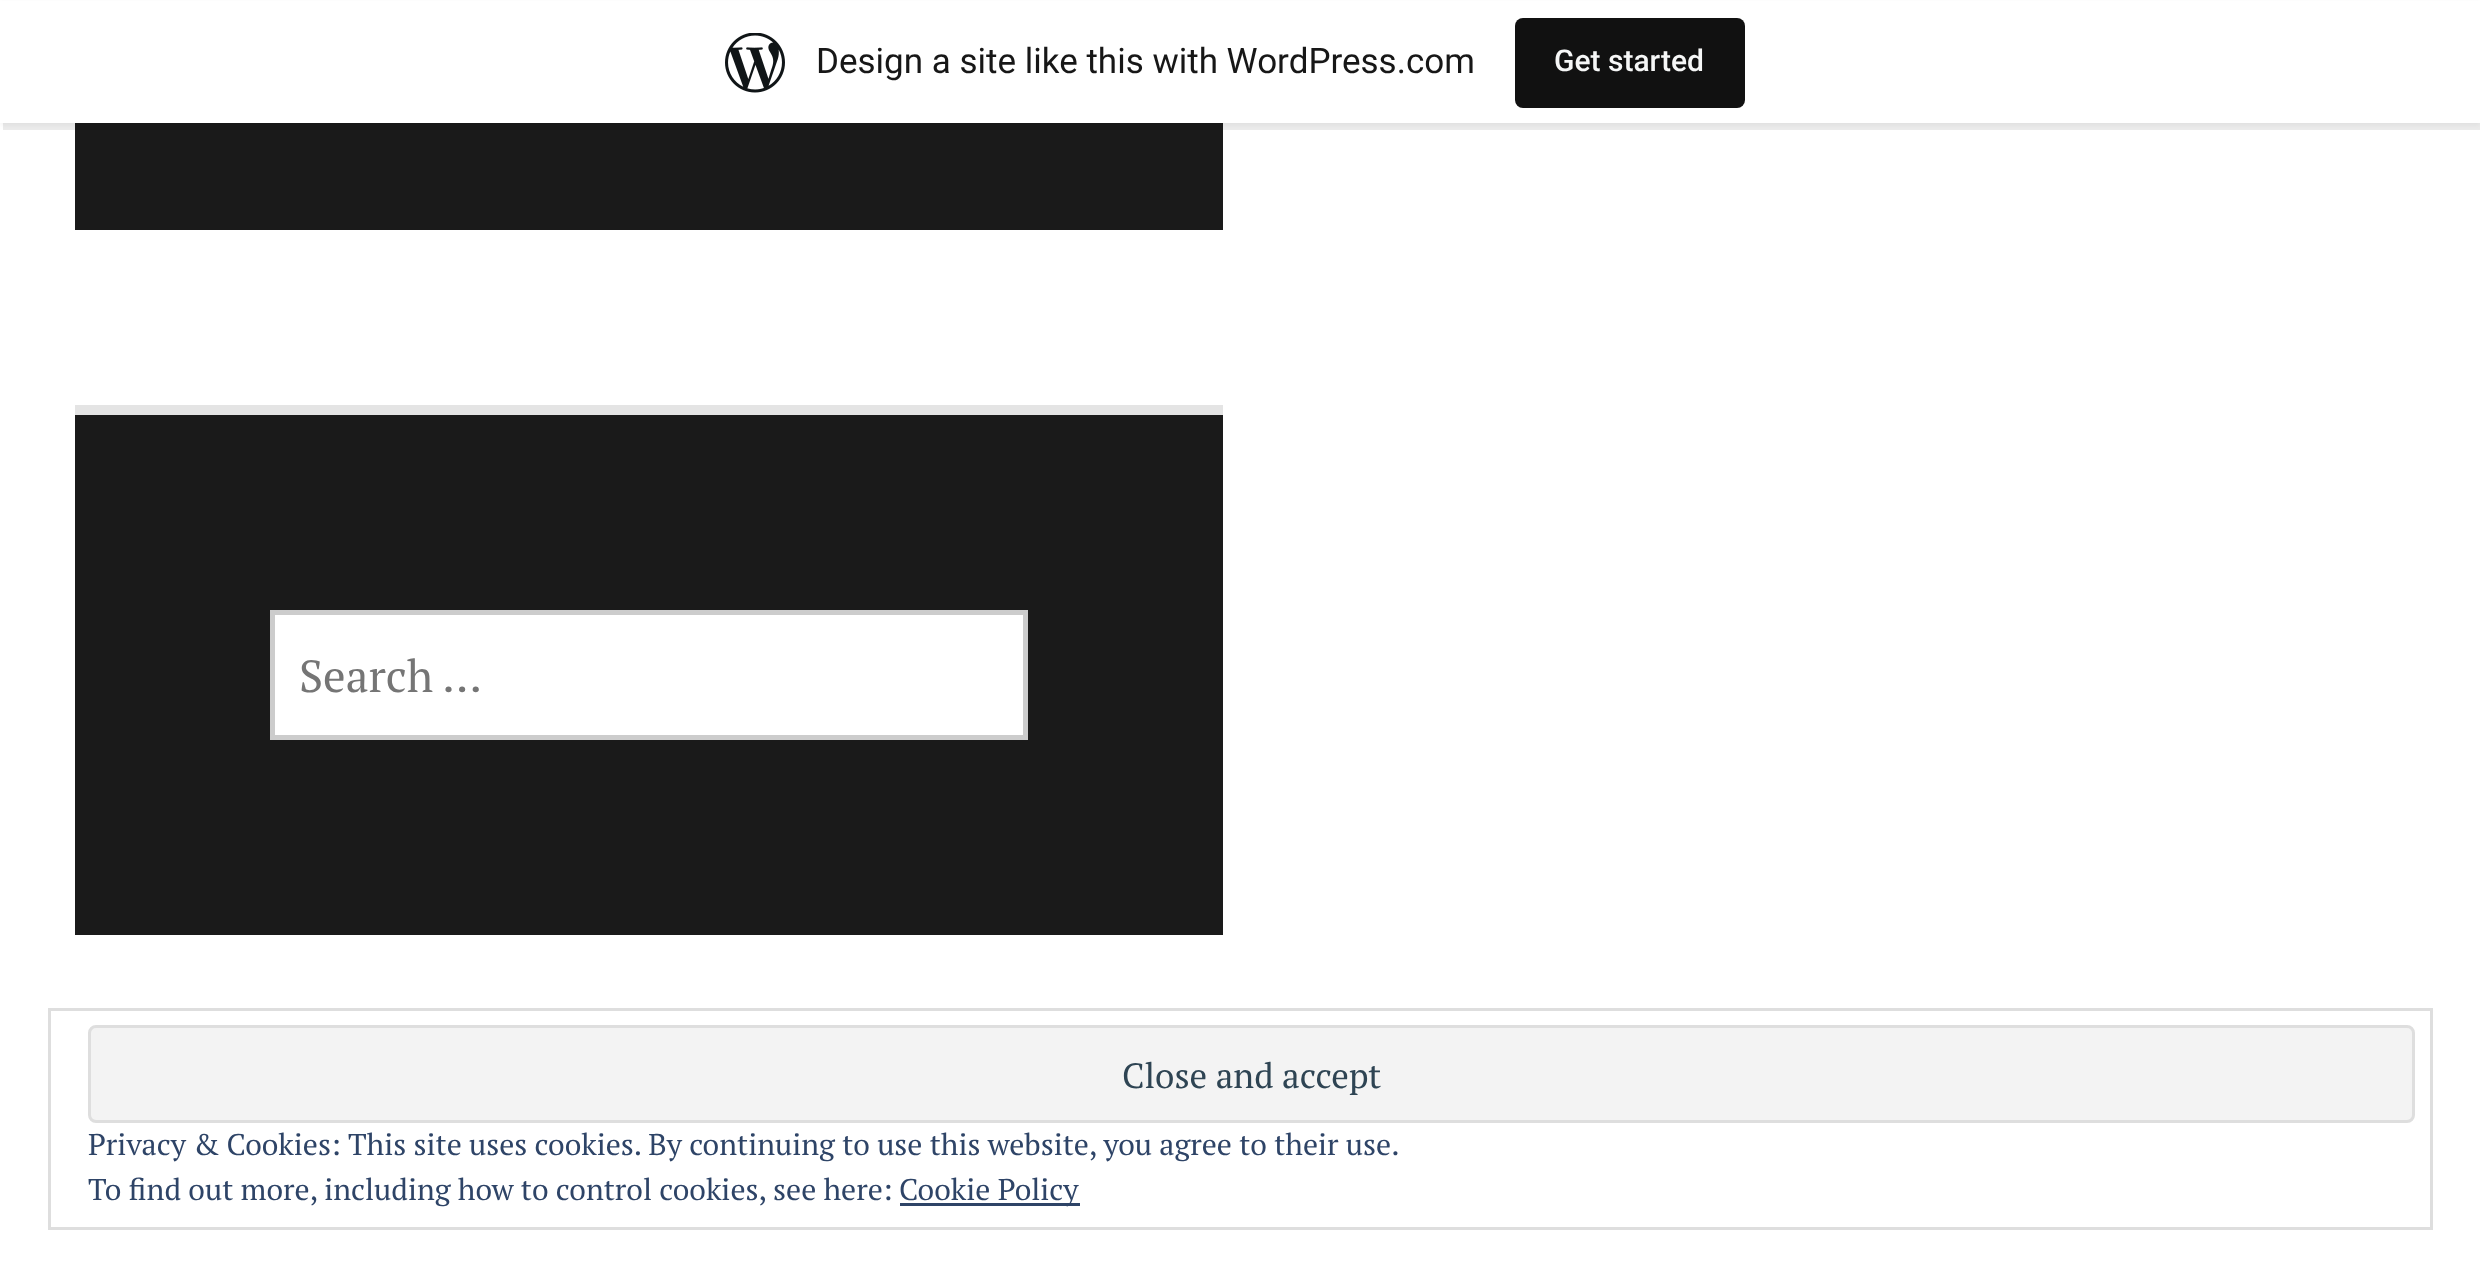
<!DOCTYPE html>
<meta charset="utf-8">
<style>body { margin: 0 } canvas { display: block }</style>
<canvas id="canvas" width="2480" height="1277"></canvas>
<script type="module">
  const canvas = document.getElementById("canvas");
  const g = canvas.getContext("2d");
  g.miterLimit = 4;
  g.fontKerning = "normal";
  function drawText(s, x, y, [font, color]) {
    g.font = font;
    g.fillStyle = color;
    g.fillText(s, x, y);
  }
  function fillBox(x, y, w, h, color) {
    g.fillStyle = color;
    g.fillRect(x, y, w, h);
  }
  function fillRounded(x, y, w, h, r, color) {
    g.fillStyle = color;
    g.beginPath();
    g.roundRect(x, y, w, h, r);
    g.fill();
  }
  async function drawPicture(src, x, y, w, h) {
    const img = new Image();
    img.src = src;
    await img.decode();
    g.drawImage(img, x, y, w, h);
  }

  const s1 = ["35px Roboto", "#171717"];
  const s2 = ["500 30px Roboto", "#F6F7F7"];
  const s3 = ["45px PT Serif", "#757575"];
  const s4 = ["35px PT Serif", "#2E4453"];
  const s5 = ["30px PT Serif", "#2E4467"];

  fillBox(0, 0, 2480, 1277, "#FFFFFF");
  fillBox(75, 123, 1148, 107, "#1A1A1A");
  g.fillStyle = "rgba(0, 0, 0, 0.05)";
  g.filter = "blur(2.5px)";
  g.beginPath();
  g.rect(0, 3, 2480, 122);
  g.fill();
  g.filter = "none";
  g.fillStyle = "rgba(0, 0, 0, 0.08)";
  g.beginPath();
  g.moveTo(3, 122);
  g.lineTo(3, 130);
  g.lineTo(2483, 130);
  g.lineTo(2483, 8);
  g.lineTo(2480, 8);
  g.lineTo(2480, 122);
  g.closePath();
  g.fill();
  fillBox(0, 1, 2480, 122, "#FFFFFF");
  await drawPicture("pic1.png", 725, 33, 60, 60);
  drawText("Design a site like this with WordPress.com", 816, 73, s1);
  fillRounded(1515, 18, 230, 90, 8, "#111111");
  drawText("Get started", 1554, 71, s2);
  fillBox(75, 415, 1148, 520, "#1A1A1A");
  fillBox(75, 405, 1148, 10, "#E4E4E4");
  g.fillStyle = "#FFFFFF";
  g.beginPath();
  g.rect(272.5, 612.5, 753, 125);
  g.fill();
  g.strokeStyle = "#CCCCCC";
  g.lineWidth = 5;
  g.stroke();
  drawText("Search …", 299, 692, s3);
  g.strokeStyle = "#DEDEDE";
  g.lineWidth = 3;
  g.strokeRect(49.5, 1009.5, 2382, 219);
  g.fillStyle = "#F3F3F3";
  g.beginPath();
  g.roundRect(89.5, 1026.5, 2324, 95, 6.5);
  g.fill();
  g.stroke();
  drawText("Close and accept", 1122, 1088, s4);
  drawText("Privacy & Cookies: This site uses cookies. By continuing to use this website, you agree to their use.", 88, 1155, s5);
  drawText("To find out more, including how to control cookies, see here:", 88, 1200, s5);
  fillBox(900, 1203, 180, 3, "#2E4467");
  drawText("Cookie Policy", 899, 1200, s5);
</script>
